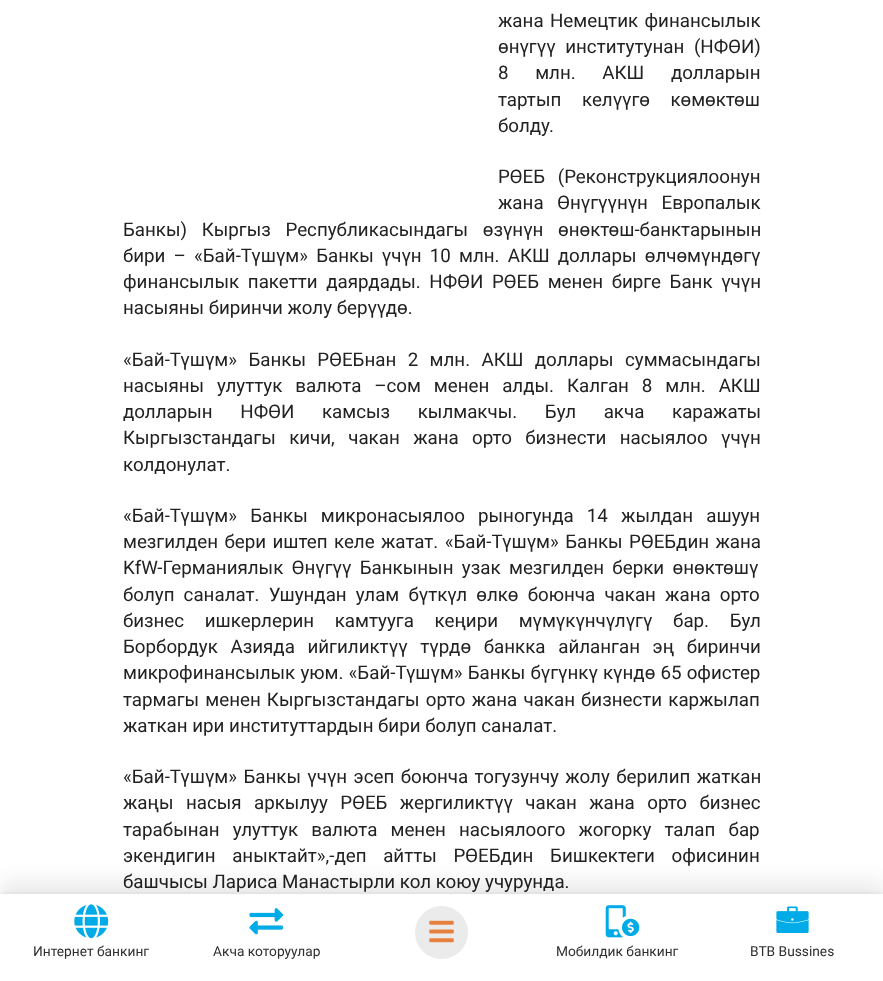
<!DOCTYPE html>
<meta charset="utf-8">
<style>body { margin: 0 } canvas { display: block }</style>
<canvas id="canvas" width="883" height="981"></canvas>
<script type="module">
  const canvas = document.getElementById("canvas");
  const g = canvas.getContext("2d");
  g.miterLimit = 4;
  g.fontKerning = "normal";
  function drawText(s, x, y, [font, color]) {
    g.font = font;
    g.fillStyle = color;
    g.fillText(s, x, y);
  }
  function fillBox(x, y, w, h, color) {
    g.fillStyle = color;
    g.fillRect(x, y, w, h);
  }
  async function drawPicture(src, x, y, w, h) {
    const img = new Image();
    img.src = src;
    await img.decode();
    g.drawImage(img, x, y, w, h);
  }

  const s1 = ["18.75px Roboto", "#222222"];
  const s2 = ["13.75px Roboto", "#2F2F2F"];

  fillBox(0, 0, 883, 981, "#FFFFFF");
  g.wordSpacing = "1.75px";
  drawText("жана Немецтик финансылык", 498, 27, s1);
  g.wordSpacing = "5px";
  drawText("өнүгүү институтунан (НФӨИ)", 498, 53, s1);
  g.wordSpacing = "22px";
  drawText("8 млн. АКШ долларын", 498, 79, s1);
  g.wordSpacing = "16px";
  drawText("тартып келүүгө көмөктөш", 498, 106, s1);
  g.wordSpacing = "0px";
  drawText("болду.", 498, 132, s1);
  g.wordSpacing = "8px";
  drawText("РӨЕБ (Реконструкциялоонун", 498, 183, s1);
  g.wordSpacing = "9px";
  drawText("жана Өнүгүүнүн Европалык", 498, 209, s1);
  g.wordSpacing = "10px";
  drawText("Банкы) Кыргыз Республикасындагы өзүнүн өнөктөш-банктарынын", 123, 236, s1);
  g.wordSpacing = "3.5px";
  drawText("бири – «Бай-Түшүм» Банкы үчүн 10 млн. АКШ доллары өлчөмүндөгү", 123, 262, s1);
  g.wordSpacing = "4px";
  drawText("финансылык пакетти даярдады. НФӨИ РӨЕБ менен бирге Банк үчүн", 123, 288, s1);
  g.wordSpacing = "0px";
  drawText("насыяны биринчи жолу берүүдө.", 123, 314, s1);
  g.wordSpacing = "6.75px";
  drawText("«Бай-Түшүм» Банкы РӨЕБнан 2 млн. АКШ доллары суммасындагы", 123, 366, s1);
  g.wordSpacing = "8.25px";
  drawText("насыяны улуттук валюта –сом менен алды. Калган 8 млн. АКШ", 123, 392, s1);
  g.wordSpacing = "23px";
  drawText("долларын НФӨИ камсыз кылмакчы. Бул акча каражаты", 123, 418, s1);
  g.wordSpacing = "8.75px";
  drawText("Кыргызстандагы кичи, чакан жана орто бизнести насыялоо үчүн", 123, 444, s1);
  g.wordSpacing = "0px";
  drawText("колдонулат.", 123, 471, s1);
  g.wordSpacing = "8.5px";
  drawText("«Бай-Түшүм» Банкы микронасыялоо рыногунда 14 жылдан ашуун", 123, 522, s1);
  g.wordSpacing = "1.75px";
  drawText("мезгилден бери иштеп келе жатат. «Бай-Түшүм» Банкы РӨЕБдин жана", 123, 548, s1);
  g.wordSpacing = "3.75px";
  drawText("KfW-Германиялык Өнүгүү Банкынын узак мезгилден берки өнөктөшү", 123, 574, s1);
  g.wordSpacing = "4.5px";
  drawText("болуп саналат. Ушундан улам бүткүл өлкө боюнча чакан жана орто", 123, 601, s1);
  g.wordSpacing = "16px";
  drawText("бизнес ишкерлерин камтууга кеңири мүмүкүнчүлүгү бар. Бул", 123, 627, s1);
  g.wordSpacing = "8px";
  drawText("Борбордук Азияда ийгиликтүү түрдө банкка айланган эң биринчи", 123, 653, s1);
  g.wordSpacing = "0.5px";
  drawText("микрофинансылык уюм. «Бай-Түшүм» Банкы бүгүнкү күндө 65 офистер", 123, 679, s1);
  g.wordSpacing = "1.5px";
  drawText("тармагы менен Кыргызстандагы орто жана чакан бизнести каржылап", 123, 706, s1);
  g.wordSpacing = "0px";
  drawText("жаткан ири институттардын бири болуп саналат.", 123, 732, s1);
  g.wordSpacing = "1.75px";
  drawText("«Бай-Түшүм» Банкы үчүн эсеп боюнча тогузунчу жолу берилип жаткан", 123, 783, s1);
  g.wordSpacing = "7.75px";
  drawText("жаңы насыя аркылуу РӨЕБ жергиликтүү чакан жана орто бизнес", 123, 809, s1);
  g.wordSpacing = "8.5px";
  drawText("тарабынан улуттук валюта менен насыялоого жогорку талап бар", 123, 836, s1);
  g.wordSpacing = "12px";
  drawText("экендигин аныктайт»,-деп айтты РӨЕБдин Бишкектеги офисинин", 123, 862, s1);
  g.wordSpacing = "0px";
  drawText("башчысы Лариса Манастырли кол коюу учурунда.", 123, 888, s1);
  g.fillStyle = "rgba(0, 0, 0, 0.08)";
  g.filter = "blur(9.5px)";
  g.beginPath();
  g.rect(0, 881, 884, 88);
  g.fill();
  g.filter = "none";
  g.fillStyle = "rgba(0, 0, 0, 0.1)";
  g.filter = "blur(2.5px)";
  g.beginPath();
  g.rect(0, 894, 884, 87);
  g.fill();
  g.filter = "none";
  fillBox(0, 894, 883, 87, "#FFFFFF");
  await drawPicture("pic1.png", 74, 904, 35, 35);
  drawText("Интернет банкинг", 33, 956, s2);
  await drawPicture("pic2.png", 249, 908, 35, 27);
  drawText("Акча которуулар", 213, 956, s2);
  g.fillStyle = "#EBEBEB";
  g.beginPath();
  g.arc(441.5, 932.5, 26.5, 0, Math.PI * 2);
  g.fill();
  await drawPicture("pic3.png", 429, 920, 25, 23);
  await drawPicture("pic4.png", 605, 905, 35, 33);
  drawText("Мобилдик банкинг", 556, 956, s2);
  await drawPicture("pic5.png", 776, 906, 33, 27);
  drawText("BTB Bussines", 750, 956, s2);
</script>
